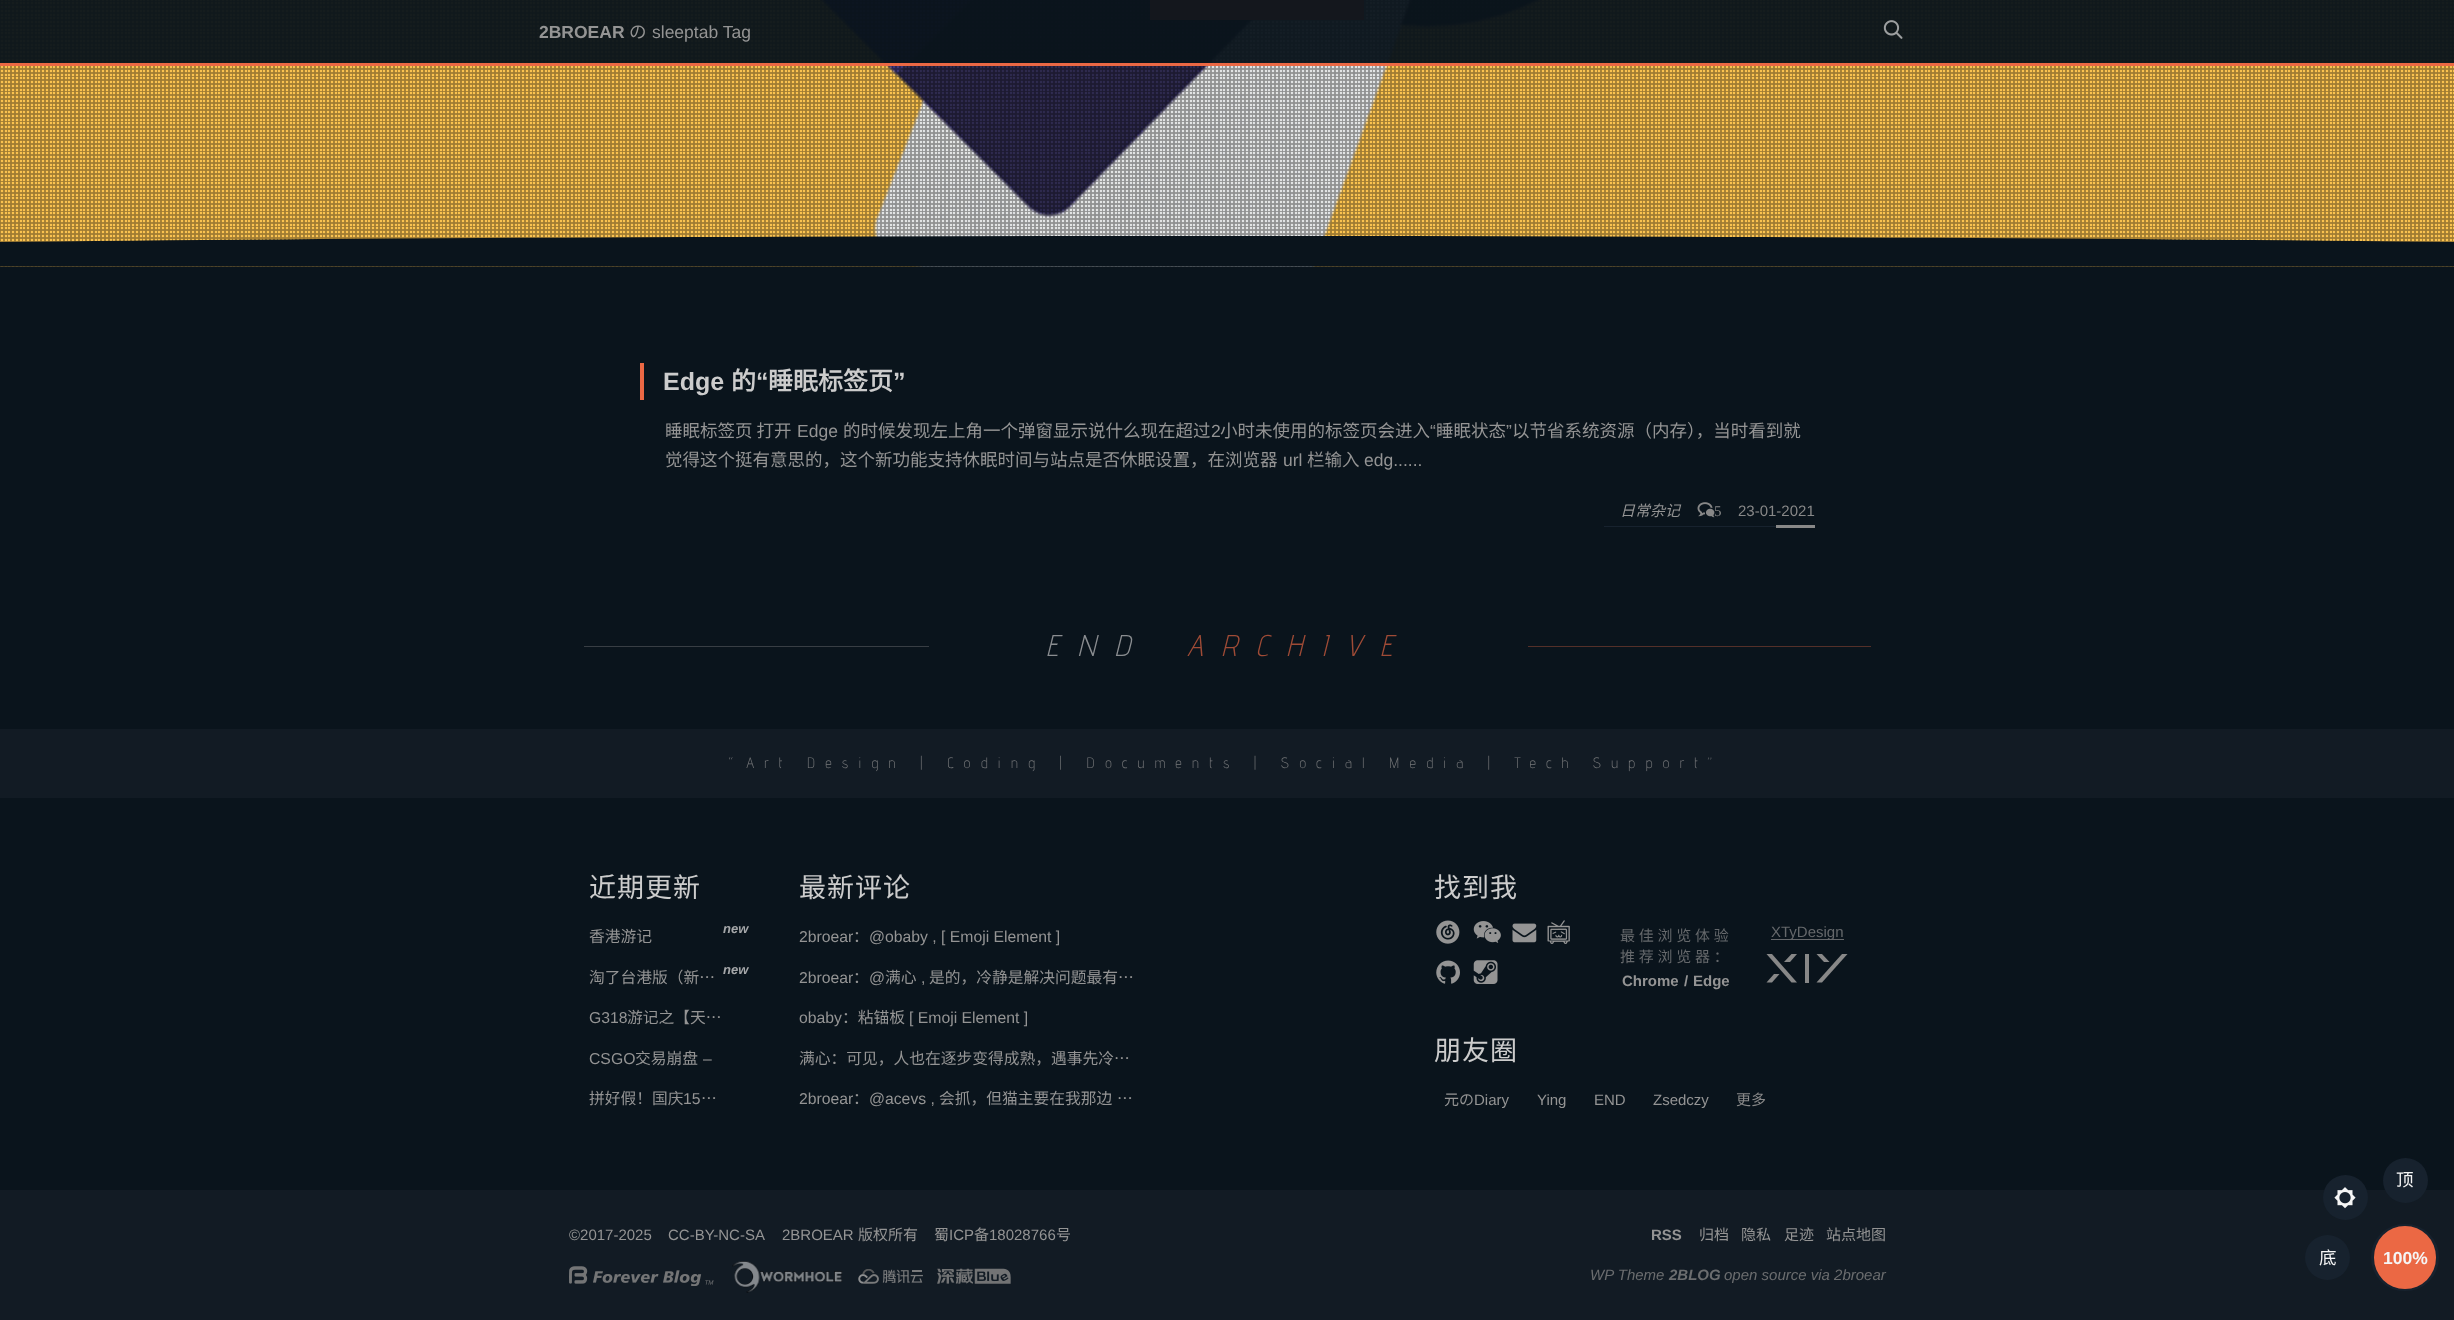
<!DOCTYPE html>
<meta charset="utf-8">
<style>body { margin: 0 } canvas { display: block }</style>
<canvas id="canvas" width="2454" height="1320"></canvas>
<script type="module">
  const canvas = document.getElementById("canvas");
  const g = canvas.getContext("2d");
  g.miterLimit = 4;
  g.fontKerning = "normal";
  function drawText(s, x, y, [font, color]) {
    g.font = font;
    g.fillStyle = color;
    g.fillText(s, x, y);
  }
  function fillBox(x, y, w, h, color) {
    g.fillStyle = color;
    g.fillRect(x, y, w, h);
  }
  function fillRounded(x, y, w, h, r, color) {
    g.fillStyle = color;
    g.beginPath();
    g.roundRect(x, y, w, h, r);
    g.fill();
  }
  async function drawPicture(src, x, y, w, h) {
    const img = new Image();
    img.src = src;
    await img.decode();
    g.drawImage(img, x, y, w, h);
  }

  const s1 = ["bold 17.5px Liberation Sans", "#949494"];
  const s2 = ["17.5px Noto Sans CJK SC", "#949494"];
  const s3 = ["17.5px Liberation Sans", "#949494"];
  const s4 = ["bold 25px Liberation Sans", "#CCCCCC"];
  const s5 = ["bold 25px Noto Sans CJK SC", "#CCCCCC"];
  const s6 = ["italic 15px Noto Sans CJK SC", "#949494"];
  const s7 = ["15px Liberation Serif", "#888888"];
  const s8 = ["15px Liberation Sans", "#888888"];
  const s9 = ["italic 300 30px Advent Pro", "#8A8D90"];
  const s10 = ["italic 300 30px Advent Pro", "#9F4B36"];
  const s11 = ["300 15px Advent Pro", "#747678"];
  const s12 = ["27px Noto Sans CJK SC", "#CCCCCC"];
  const s13 = ["15.75px Noto Sans CJK SC", "#949494"];
  const s14 = ["italic bold 13px Liberation Sans", "#A5A7A9"];
  const s15 = ["15.75px Liberation Sans", "#949494"];
  const s16 = ["15px Noto Sans CJK SC", "#65686B"];
  const s17 = ["bold 15px Liberation Sans", "#949494"];
  const s18 = ["15px Liberation Sans", "#65686B"];
  const s19 = ["15px Noto Sans CJK SC", "#949494"];
  const s20 = ["15px Liberation Sans", "#949494"];
  const s21 = ["15px Noto Sans CJK SC", "#888888"];
  const s22 = ["italic 15px Liberation Sans", "#6B6D6F"];
  const s23 = ["italic bold 15px Liberation Sans", "#6B6D6F"];
  const s24 = ["17.5px Noto Sans CJK SC", "#F5F5F5"];
  const s25 = ["bold 17.5px Liberation Sans", "#F5F5F5"];

  fillBox(0, 0, 2454, 1320, "#0A141C");
  await drawPicture("pic1.png", 0, 0, 2454, 267);
  await drawPicture("pic2.png", 0, 0, 2454, 267);
  fillBox(1150, 0, 214, 20, "#EB6844");
  fillBox(0, 0, 2454, 63, "rgba(10, 20, 28, 0.5)");
  fillBox(0, 0, 2454, 63, "rgba(10, 20, 28, 0.91)");
  drawText("2BROEAR", 539, 38, s1);
  drawText("の", 629, 38, s2);
  drawText("sleeptab Tag", 652, 38, s3);
  await drawPicture("pic3.png", 1883, 20, 20, 19);
  fillBox(0, 63, 2454, 3, "#EB6844");
  g.save();
  g.beginPath();
  g.rect(0, 0, 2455, 266);
  g.clip();
  g.fillStyle = "#0A141C";
  g.beginPath();
  g.ellipse(1227.5, 260, 1841, 24, 0, 0, Math.PI * 2);
  g.fill();
  g.restore();
  fillBox(640, 363, 4, 37, "#EB6844");
  drawText("Edge", 663, 390, s4);
  drawText("的", 731, 390, s5);
  drawText("“", 756, 390, s4);
  drawText("睡眠标签页", 768, 390, s5);
  drawText("”", 893, 390, s4);
  drawText("睡眠标签页 打开", 665, 437, s2);
  drawText("Edge", 797, 437, s3);
  drawText("的时候发现左上角一个弹窗显示说什么现在超过", 843, 437, s2);
  drawText("2", 1211, 437, s3);
  drawText("小时未使用的标签页会进入", 1220, 437, s2);
  drawText("“", 1430, 437, s3);
  drawText("睡眠状态", 1436, 437, s2);
  drawText("”", 1506, 437, s3);
  drawText("以节省系统资源（内存），当时看到就", 1512, 437, s2);
  drawText("觉得这个挺有意思的，这个新功能支持休眠时间与站点是否休眠设置，在浏览器", 665, 466, s2);
  drawText("url", 1283, 466, s3);
  drawText("栏输入", 1307, 466, s2);
  drawText("edg......", 1364, 466, s3);
  fillBox(1604, 526, 172, 1, "#17222E");
  drawText("日常杂记", 1620, 516, s6);
  await drawPicture("pic4.png", 1697, 502, 18, 16);
  drawText("5", 1714, 516, s7);
  drawText("23-01-2021", 1738, 516, s8);
  fillBox(1776, 525, 39, 3, "#888888");
  fillBox(584, 646, 345, 1, "#383E44");
  g.letterSpacing = "17.5px";
  drawText("END", 1045, 656, s9);
  drawText("ARCHIVE", 1187, 656, s10);
  fillBox(1528, 646, 343, 1, "#543029");
  fillBox(0, 729, 2454, 69, "#121B24");
  g.letterSpacing = "10px";
  drawText("“Art Design | Coding | Documents | Social Media | Tech Support”", 729, 768, s11);
  g.letterSpacing = "1px";
  drawText("近期更新", 589, 897, s12);
  g.letterSpacing = "0px";
  drawText("香港游记", 589, 942, s13);
  drawText("new", 723, 933, s14);
  drawText("淘了台港版（新…", 589, 983, s13);
  drawText("new", 723, 974, s14);
  drawText("G318", 589, 1023, s15);
  drawText("游记之【天…", 627, 1023, s13);
  drawText("CSGO", 589, 1064, s15);
  drawText("交易崩盘", 635, 1064, s13);
  drawText("–", 703, 1064, s15);
  drawText("拼好假！国庆", 589, 1104, s13);
  drawText("15", 683, 1104, s15);
  drawText("…", 701, 1104, s13);
  g.letterSpacing = "1px";
  drawText("最新评论", 799, 897, s12);
  g.letterSpacing = "0px";
  drawText("2broear", 799, 942, s15);
  drawText("：", 853, 942, s13);
  drawText("@obaby , [ Emoji Element ]", 869, 942, s15);
  drawText("2broear", 799, 983, s15);
  drawText("：", 853, 983, s13);
  drawText("@", 869, 983, s15);
  drawText("满心", 885, 983, s13);
  drawText(",", 921, 983, s15);
  drawText("是的，冷静是解决问题最有…", 929, 983, s13);
  drawText("obaby", 799, 1023, s15);
  drawText("：粘锚板", 842, 1023, s13);
  drawText("[ Emoji Element ]", 909, 1023, s15);
  drawText("满心：可见，人也在逐步变得成熟，遇事先冷…", 799, 1064, s13);
  drawText("2broear", 799, 1104, s15);
  drawText("：", 853, 1104, s13);
  drawText("@acevs ,", 869, 1104, s15);
  drawText("会抓，但猫主要在我那边", 939, 1104, s13);
  drawText("…", 1117, 1104, s13);
  g.letterSpacing = "1px";
  drawText("找到我", 1434, 897, s12);
  await drawPicture("pic5.png", 1436, 920, 24, 24);
  await drawPicture("pic6.png", 1473, 921, 28, 22);
  await drawPicture("pic7.png", 1512, 923, 25, 20);
  await drawPicture("pic8.png", 1547, 920, 23, 24);
  await drawPicture("pic9.png", 1436, 960, 24, 24);
  await drawPicture("pic10.png", 1473, 960, 25, 24);
  g.letterSpacing = "3.75px";
  drawText("最佳浏览体验", 1620, 941, s16);
  drawText("推荐浏览器：", 1620, 962, s16);
  g.letterSpacing = "0px";
  drawText("Chrome", 1622, 986, s17);
  drawText("/", 1684, 986, s17);
  drawText("Edge", 1693, 986, s17);
  fillBox(1771, 939, 73, 1, "#65686B");
  drawText("XTyDesign", 1771, 937, s18);
  fillBox(1805, 954, 4, 29, "#888888");
  g.beginPath();
  g.moveTo(1847.5, 954);
  g.lineTo(1822, 982.5);
  g.lineTo(1816.5, 982.5);
  g.lineTo(1842, 954);
  g.fill();
  g.beginPath();
  g.moveTo(1822, 954);
  g.lineTo(1816.5, 954);
  g.lineTo(1824, 962);
  g.lineTo(1829.5, 962);
  g.closePath();
  g.moveTo(1790, 962);
  g.lineTo(1784, 962);
  g.lineTo(1791.5, 954);
  g.lineTo(1797, 954);
  g.closePath();
  g.fill();
  g.beginPath();
  g.moveTo(1766.5, 954);
  g.lineTo(1791.5, 982.5);
  g.lineTo(1797, 982.5);
  g.lineTo(1772, 954);
  g.fill();
  g.beginPath();
  g.moveTo(1772, 982.5);
  g.lineTo(1766.5, 982.5);
  g.lineTo(1774, 974);
  g.lineTo(1779.5, 974);
  g.closePath();
  g.fill();
  g.letterSpacing = "1px";
  drawText("朋友圈", 1434, 1060, s12);
  g.letterSpacing = "0px";
  drawText("元の", 1444, 1105, s19);
  drawText("Diary", 1474, 1105, s20);
  drawText("Ying", 1537, 1105, s20);
  drawText("END", 1594, 1105, s20);
  drawText("Zsedczy", 1653, 1105, s20);
  drawText("更多", 1736, 1105, s21);
  fillBox(0, 1190, 2454, 130, "#121B24");
  drawText("©2017-2025", 569, 1240, s20);
  drawText("CC-BY-NC-SA", 668, 1240, s20);
  drawText("2BROEAR", 782, 1240, s20);
  drawText("版权所有", 858, 1240, s19);
  drawText("蜀", 934, 1240, s19);
  drawText("ICP", 949, 1240, s20);
  drawText("备", 974, 1240, s19);
  drawText("18028766", 989, 1240, s20);
  drawText("号", 1056, 1240, s19);
  await drawPicture("pic11.png", 569, 1266, 145, 20);
  await drawPicture("pic12.png", 732, 1261, 111, 32);
  await drawPicture("pic13.png", 858, 1269, 65, 15);
  await drawPicture("pic14.png", 937, 1268, 74, 16);
  drawText("RSS", 1651, 1240, s17);
  drawText("归档", 1699, 1240, s19);
  drawText("隐私", 1741, 1240, s19);
  drawText("足迹", 1784, 1240, s19);
  drawText("站点地图", 1826, 1240, s19);
  drawText("WP Theme", 1590, 1280, s22);
  drawText("2BLOG", 1669, 1280, s23);
  drawText("open source via 2broear", 1724, 1280, s22);
  g.fillStyle = "#17222E";
  g.beginPath();
  g.arc(2345.5, 1197.5, 22.5, 0, Math.PI * 2);
  g.fill();
  await drawPicture("pic15.png", 2334, 1187, 22, 22);
  g.beginPath();
  g.arc(2405.5, 1180.5, 22.5, 0, Math.PI * 2);
  g.fill();
  drawText("顶", 2396, 1186, s24);
  g.fillStyle = "#17222E";
  g.beginPath();
  g.arc(2327.5, 1257.5, 22.5, 0, Math.PI * 2);
  g.fill();
  drawText("底", 2319, 1264, s24);
  g.beginPath();
  g.roundRect(2372.5, 1225.5, 65, 64, 32);
  g.strokeStyle = "#17222E";
  g.lineWidth = 3;
  g.stroke();
  fillRounded(2374, 1226, 62, 63, 31, "#EB6844");
  drawText("100%", 2383, 1264, s25);
</script>
